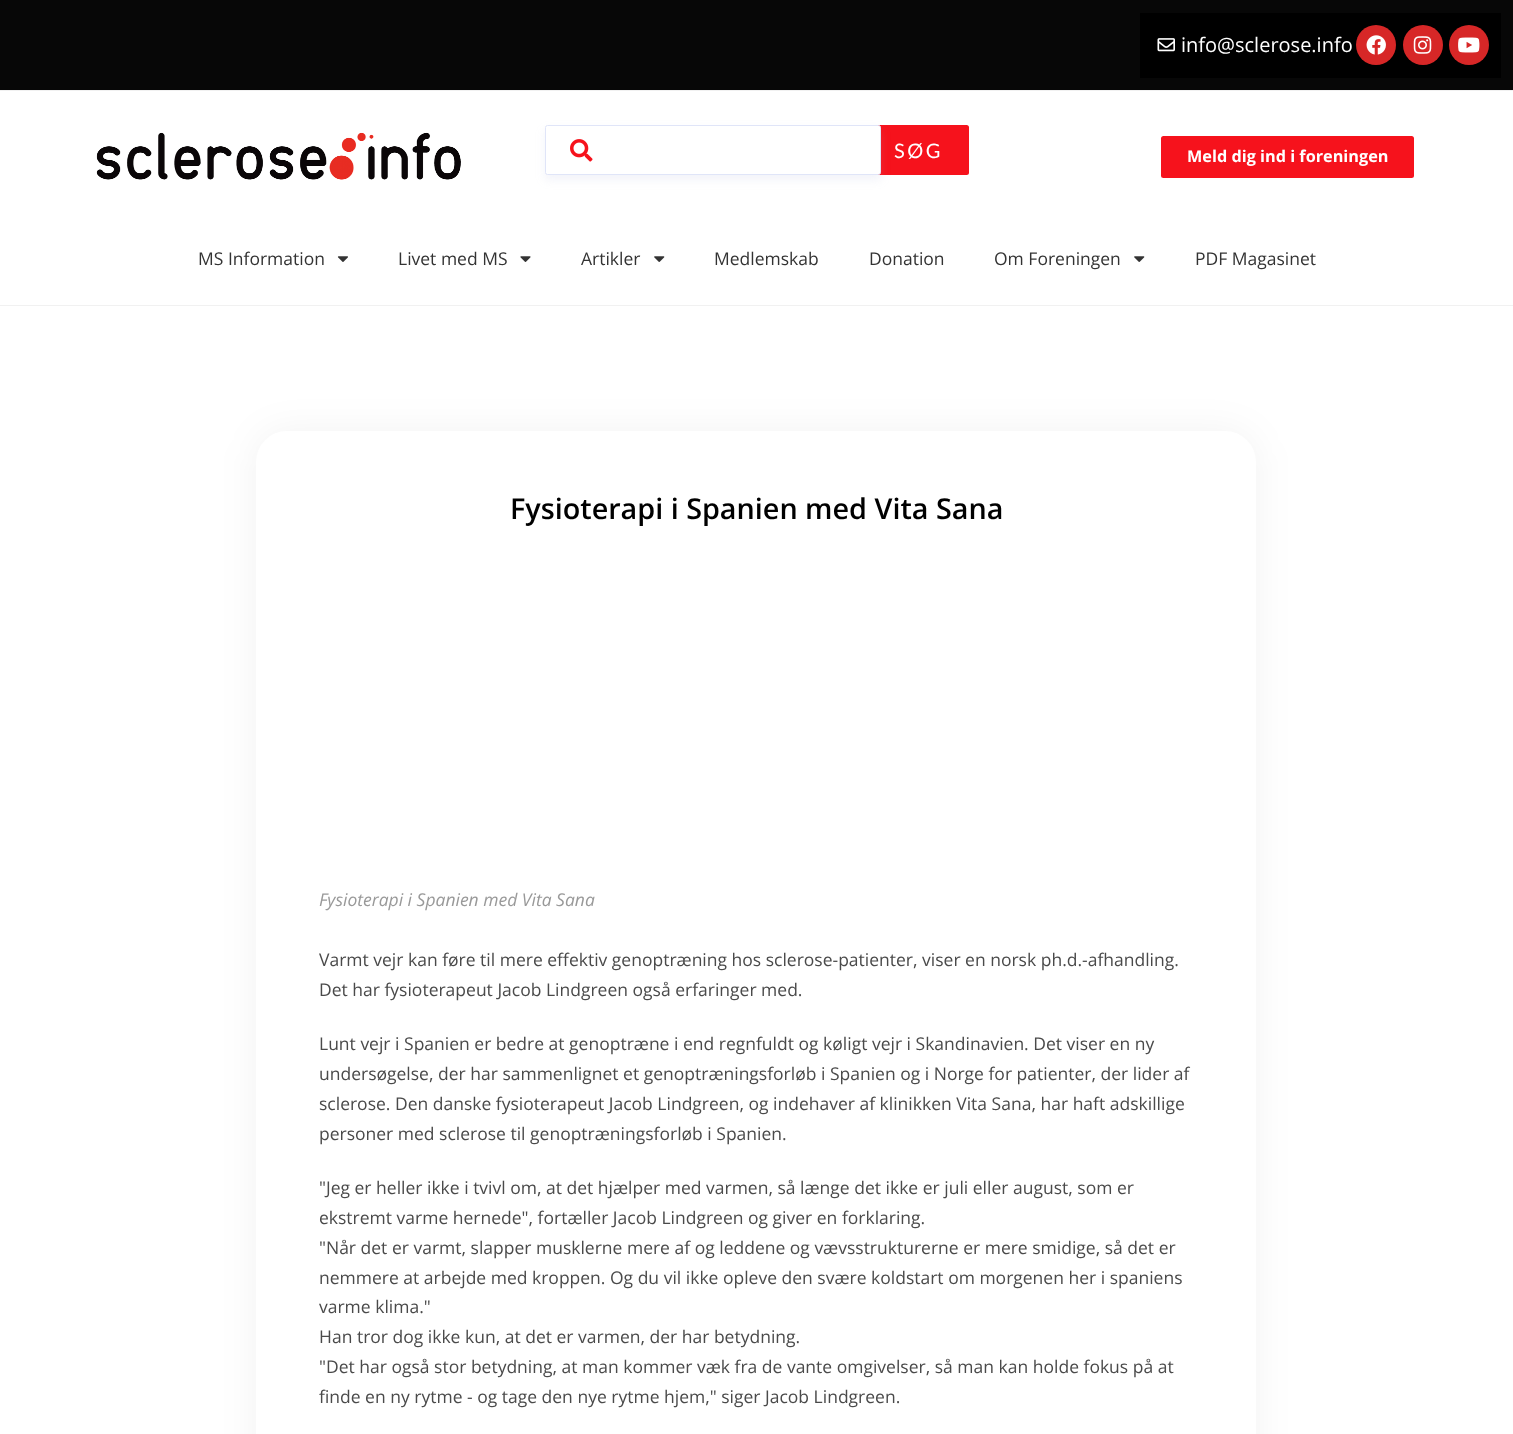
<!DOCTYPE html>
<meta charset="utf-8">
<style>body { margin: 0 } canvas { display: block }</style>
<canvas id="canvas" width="1513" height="1434"></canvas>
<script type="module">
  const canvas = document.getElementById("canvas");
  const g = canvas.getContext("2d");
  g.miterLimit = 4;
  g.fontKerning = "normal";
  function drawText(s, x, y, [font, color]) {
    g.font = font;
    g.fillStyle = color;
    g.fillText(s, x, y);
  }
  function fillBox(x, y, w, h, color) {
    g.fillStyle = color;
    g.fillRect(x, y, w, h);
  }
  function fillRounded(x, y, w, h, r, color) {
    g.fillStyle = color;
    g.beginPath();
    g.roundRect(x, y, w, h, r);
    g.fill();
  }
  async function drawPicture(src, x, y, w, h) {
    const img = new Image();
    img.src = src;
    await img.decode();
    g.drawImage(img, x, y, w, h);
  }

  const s1 = ["20px Open Sans", "#FFFFFF"];
  const s2 = ["20px Lato", "#FFFFFF"];
  const s3 = ["bold 16.25px Open Sans", "#FFFFFF"];
  const s4 = ["17.5px Open Sans", "#333333"];
  const s5 = ["600 28.75px Open Sans", "#000000"];
  const s6 = ["italic 17.5px Open Sans", "#999999"];
  const s7 = ["17.5px Open Sans", "#4A4A4A"];

  fillBox(0, 0, 1513, 1434, "#FFFFFF");
  fillBox(0, 0, 1513, 90, "#070707");
  fillBox(0, 90, 1513, 1, "#F1F1F1");
  fillBox(1140, 13, 361, 65, "#000000");
  await drawPicture("pic1.png", 1157, 38, 18, 14);
  drawText("info@sclerose.info", 1181, 52, s1);
  g.fillStyle = "#D72727";
  g.beginPath();
  g.arc(1376, 45, 20, 0, Math.PI * 2);
  g.fill();
  await drawPicture("pic2.png", 1366, 35, 20, 20);
  g.beginPath();
  g.arc(1423, 45, 20, 0, Math.PI * 2);
  g.fill();
  await drawPicture("pic3.png", 1413, 36, 19, 18);
  g.beginPath();
  g.arc(1469, 45, 20, 0, Math.PI * 2);
  g.fill();
  await drawPicture("pic4.png", 1458, 37, 22, 16);
  fillBox(0, 305, 1513, 1, "#F1F1F1");
  await drawPicture("pic5.png", 96, 132, 365, 48);
  fillRounded(869, 125, 100, 50, 2.5, "#F6121C");
  g.fillStyle = "rgba(165, 174, 213, 0.15)";
  g.filter = "blur(5px)";
  g.beginPath();
  g.roundRect(545, 130, 336, 50, 2.5);
  g.fill();
  g.filter = "none";
  g.fillStyle = "#FFFFFF";
  g.beginPath();
  g.roundRect(545.5, 125.5, 335, 49, 2);
  g.fill();
  g.strokeStyle = "#E0E5F8";
  g.stroke();
  await drawPicture("pic6.png", 570, 139, 23, 23);
  g.letterSpacing = "2.5px";
  drawText("SØG", 894, 158, s2);
  fillRounded(1161, 136, 253, 42, 2.5, "#F6121C");
  g.letterSpacing = "0px";
  drawText("Meld dig ind i foreningen", 1187, 162, s3);
  drawText("MS Information", 198, 265, s4);
  await drawPicture("pic7.png", 337, 256, 11, 6);
  drawText("Livet med MS", 398, 265, s4);
  await drawPicture("pic8.png", 520, 256, 11, 6);
  drawText("Artikler", 581, 265, s4);
  await drawPicture("pic9.png", 654, 256, 11, 6);
  drawText("Medlemskab", 714, 265, s4);
  drawText("Donation", 869, 265, s4);
  drawText("Om Foreningen", 994, 265, s4);
  await drawPicture("pic9.png", 1134, 256, 11, 6);
  drawText("PDF Magasinet", 1195, 265, s4);
  g.fillStyle = "rgba(0, 0, 0, 0.05)";
  g.filter = "blur(19px)";
  g.beginPath();
  g.roundRect(256, 431, 1000, 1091, 31);
  g.fill();
  g.filter = "none";
  fillRounded(256, 431, 1000, 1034, 31, "#FFFFFF");
  drawText("Fysioterapi i Spanien med Vita Sana", 510, 519, s5);
  drawText("Fysioterapi i Spanien med Vita Sana", 319, 906, s6);
  drawText("Varmt vejr kan føre til mere effektiv genoptræning hos sclerose-patienter, viser en norsk ph.d.-afhandling.", 319, 966, s7);
  drawText("Det har fysioterapeut Jacob Lindgreen også erfaringer med.", 319, 996, s7);
  drawText("Lunt vejr i Spanien er bedre at genoptræne i end regnfuldt og køligt vejr i Skandinavien. Det viser en ny", 319, 1050, s7);
  drawText("undersøgelse, der har sammenlignet et genoptræningsforløb i Spanien og i Norge for patienter, der lider af", 319, 1080, s7);
  drawText("sclerose. Den danske fysioterapeut Jacob Lindgreen, og indehaver af klinikken Vita Sana, har haft adskillige", 319, 1110, s7);
  drawText("personer med sclerose til genoptræningsforløb i Spanien.", 319, 1140, s7);
  drawText("\"Jeg er heller ikke i tvivl om, at det hjælper med varmen, så længe det ikke er juli eller august, som er", 319, 1194, s7);
  drawText("ekstremt varme hernede\", fortæller Jacob Lindgreen og giver en forklaring.", 319, 1224, s7);
  drawText("\"Når det er varmt, slapper musklerne mere af og leddene og vævsstrukturerne er mere smidige, så det er", 319, 1254, s7);
  drawText("nemmere at arbejde med kroppen. Og du vil ikke opleve den svære koldstart om morgenen her i spaniens", 319, 1284, s7);
  drawText("varme klima.\"", 319, 1313, s7);
  drawText("Han tror dog ikke kun, at det er varmen, der har betydning.", 319, 1343, s7);
  drawText("\"Det har også stor betydning, at man kommer væk fra de vante omgivelser, så man kan holde fokus på at", 319, 1373, s7);
  drawText("finde en ny rytme - og tage den nye rytme hjem,\" siger Jacob Lindgreen.", 319, 1403, s7);
</script>
